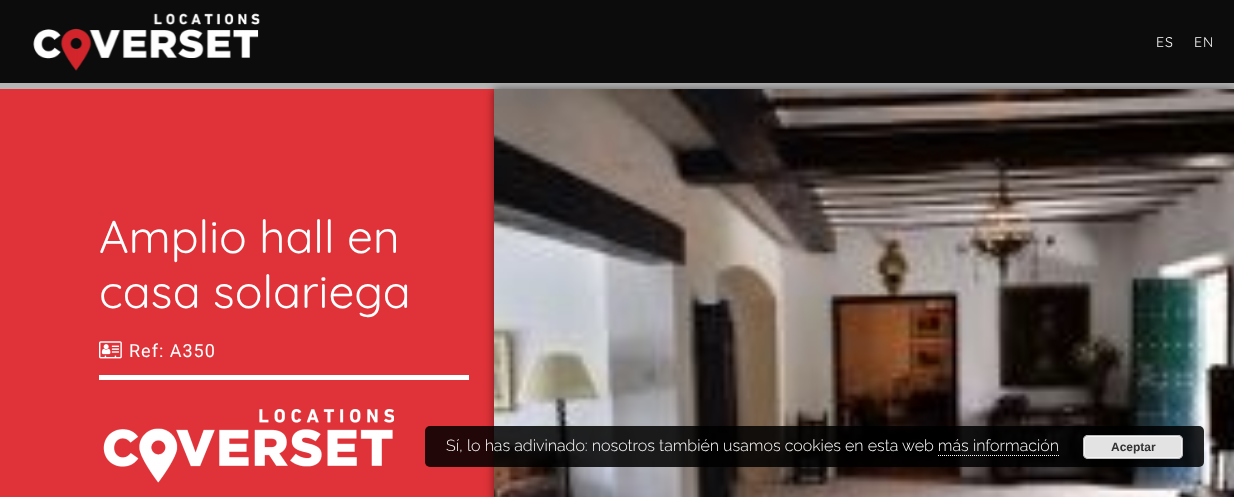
<!DOCTYPE html>
<meta charset="utf-8">
<style>body { margin: 0 } canvas { display: block }</style>
<canvas id="canvas" width="1234" height="497"></canvas>
<script type="module">
  const canvas = document.getElementById("canvas");
  const g = canvas.getContext("2d");
  g.miterLimit = 4;
  g.fontKerning = "normal";
  function drawText(s, x, y, [font, color]) {
    g.font = font;
    g.fillStyle = color;
    g.fillText(s, x, y);
  }
  function fillBox(x, y, w, h, color) {
    g.fillStyle = color;
    g.fillRect(x, y, w, h);
  }
  function fillRounded(x, y, w, h, r, color) {
    g.fillStyle = color;
    g.beginPath();
    g.roundRect(x, y, w, h, r);
    g.fill();
  }
  async function drawPicture(src, x, y, w, h) {
    const img = new Image();
    img.src = src;
    await img.decode();
    g.drawImage(img, x, y, w, h);
  }

  const s1 = ["14px Quicksand", "#F8F8F8"];
  const s2 = ["46px Quicksand", "#FFFFFF"];
  const s3 = ["18px Roboto", "#FFFFFF"];
  const s4 = ["300 16px Raleway", "#FFFFFF"];
  const s5 = ["bold 12px Liberation Sans", "#333333"];

  fillBox(0, 0, 1234, 497, "#E03339");
  fillBox(0, 83, 1234, 6, "#B5B5B5");
  g.fillStyle = "rgba(0, 0, 0, 0.5)";
  g.filter = "blur(5px)";
  g.beginPath();
  g.rect(494, 89, 740, 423);
  g.fill();
  g.filter = "none";
  fillBox(0, 0, 1234, 83, "#0C0C0C");
  await drawPicture("pic1.png", 33, 13, 227, 58);
  g.letterSpacing = "1px";
  drawText("ES", 1156, 47, s1);
  drawText("EN", 1194, 47, s1);
  g.letterSpacing = "0px";
  drawText("Amplio hall en", 99, 253, s2);
  drawText("casa solariega", 99, 308, s2);
  await drawPicture("pic2.png", 99, 341, 23, 18);
  g.letterSpacing = "1px";
  drawText("Ref: A350", 129, 357, s3);
  fillBox(99, 375, 370, 5, "#FFFFFF");
  await drawPicture("pic3.png", 103, 409, 291, 74);
  await drawPicture("pic4.png", 494, 89, 740, 408);
  fillRounded(425, 426, 779, 41, 5, "rgba(0, 0, 0, 0.85)");
  g.letterSpacing = "0px";
  drawText("Sí, lo has adivinado: nosotros también usamos cookies en esta web más información", 446, 451, s4);
  fillRounded(1083, 435, 100, 24, 5, "#E3E3E3");
  g.beginPath();
  g.roundRect(1084.5, 436.5, 97, 21, 3.5);
  g.strokeStyle = "#F6F6F6";
  g.stroke();
  g.beginPath();
  g.roundRect(1083.5, 435.5, 99, 23, 4.5);
  g.strokeStyle = "#BBBBBB";
  g.stroke();
  drawText("Aceptar", 1111, 451, s5);
  g.beginPath();
  g.moveTo(938, 455.5);
  g.lineTo(1059, 455.5);
  g.strokeStyle = "#FFFFFF";
  g.setLineDash([1, 1]);
  g.stroke();
</script>
